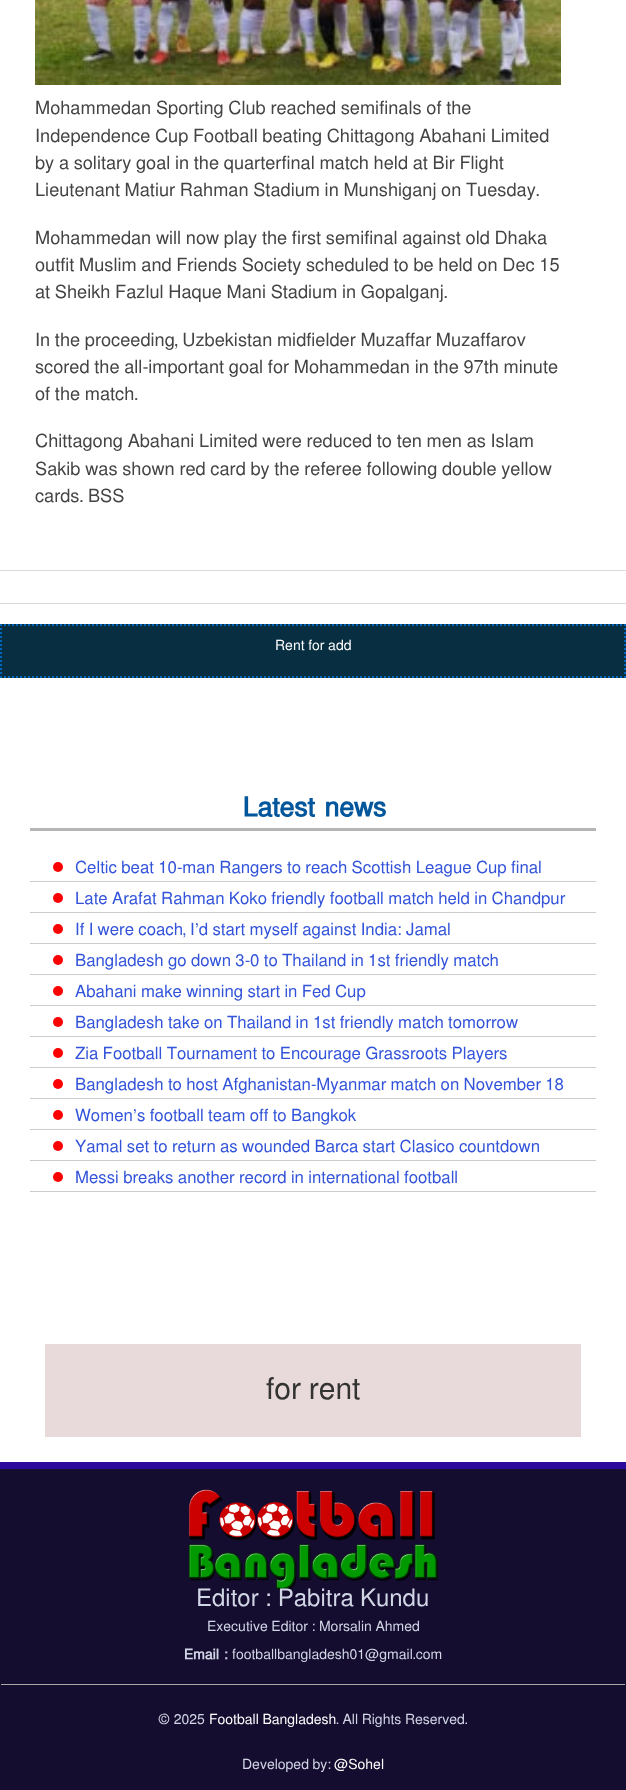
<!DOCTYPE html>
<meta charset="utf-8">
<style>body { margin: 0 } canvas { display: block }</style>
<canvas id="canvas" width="626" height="1790"></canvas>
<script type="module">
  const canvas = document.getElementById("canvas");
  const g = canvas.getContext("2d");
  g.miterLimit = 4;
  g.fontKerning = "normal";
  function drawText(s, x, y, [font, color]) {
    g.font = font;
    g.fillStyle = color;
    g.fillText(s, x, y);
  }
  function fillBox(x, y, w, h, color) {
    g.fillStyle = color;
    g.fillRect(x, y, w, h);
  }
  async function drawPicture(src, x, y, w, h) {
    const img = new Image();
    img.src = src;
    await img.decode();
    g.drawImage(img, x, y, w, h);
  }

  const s1 = ["18.2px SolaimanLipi", "#434443"];
  const s2 = ["14px SolaimanLipi", "#FFFFFF"];
  const s3 = ["bold 26.5px SolaimanLipi", "#02569B"];
  const s4 = ["16.8px SolaimanLipi", "#3253DA"];
  const s5 = ["30px SolaimanLipi", "#333333"];
  const s6 = ["24px SolaimanLipi", "#D1D6E7"];
  const s7 = ["14px SolaimanLipi", "#D1D6E7"];
  const s8 = ["bold 14px SolaimanLipi", "#D1D6E7"];

  fillBox(0, 0, 626, 1790, "#FFFFFF");
  await drawPicture("pic1.png", 35, 0, 526, 85);
  drawText("Mohammedan Sporting Club reached semifinals of the", 35, 114, s1);
  drawText("Independence Cup Football beating Chittagong Abahani Limited", 35, 142, s1);
  drawText("by a solitary goal in the quarterfinal match held at Bir Flight", 35, 169, s1);
  drawText("Lieutenant Matiur Rahman Stadium in Munshiganj on Tuesday.", 35, 196, s1);
  drawText("Mohammedan will now play the first semifinal against old Dhaka", 35, 244, s1);
  drawText("outfit Muslim and Friends Society scheduled to be held on Dec 15", 35, 271, s1);
  drawText("at Sheikh Fazlul Haque Mani Stadium in Gopalganj.", 35, 298, s1);
  drawText("In the proceeding, Uzbekistan midfielder Muzaffar Muzaffarov", 35, 346, s1);
  drawText("scored the all-important goal for Mohammedan in the 97th minute", 35, 373, s1);
  drawText("of the match.", 35, 400, s1);
  drawText("Chittagong Abahani Limited were reduced to ten men as Islam", 35, 447, s1);
  drawText("Sakib was shown red card by the referee following double yellow", 35, 475, s1);
  drawText("cards. BSS", 35, 502, s1);
  fillBox(0, 570, 626, 1, "#DADADA");
  fillBox(0, 603, 626, 1, "#DADADA");
  fillBox(0, 624, 626, 54, "#082F41");
  g.beginPath();
  g.moveTo(0, 625);
  g.lineTo(626, 625);
  g.strokeStyle = "#0267BC";
  g.lineWidth = 2;
  g.setLineDash([2, 2]);
  g.stroke();
  g.beginPath();
  g.moveTo(625, 624);
  g.lineTo(625, 678);
  g.stroke();
  g.beginPath();
  g.moveTo(0, 677);
  g.lineTo(626, 677);
  g.stroke();
  g.beginPath();
  g.moveTo(1, 624);
  g.lineTo(1, 678);
  g.stroke();
  drawText("Rent for add", 275, 650, s2);
  fillBox(30, 828, 566, 3, "#B5B5B5");
  drawText("Latest news", 243, 816, s3);
  fillBox(30, 881, 566, 1, "#CCCCCC");
  g.fillStyle = "#FF0000";
  g.beginPath();
  g.arc(58, 867, 5, 0, Math.PI * 2);
  g.fill();
  drawText("Celtic beat 10-man Rangers to reach Scottish League Cup final", 75, 873, s4);
  fillBox(30, 912, 566, 1, "#CCCCCC");
  g.fillStyle = "#FF0000";
  g.beginPath();
  g.arc(58, 898, 5, 0, Math.PI * 2);
  g.fill();
  drawText("Late Arafat Rahman Koko friendly football match held in Chandpur", 75, 904, s4);
  fillBox(30, 943, 566, 1, "#CCCCCC");
  g.fillStyle = "#FF0000";
  g.beginPath();
  g.arc(58, 929, 5, 0, Math.PI * 2);
  g.fill();
  drawText("If I were coach, I’d start myself against India: Jamal", 75, 935, s4);
  fillBox(30, 974, 566, 1, "#CCCCCC");
  g.fillStyle = "#FF0000";
  g.beginPath();
  g.arc(58, 960, 5, 0, Math.PI * 2);
  g.fill();
  drawText("Bangladesh go down 3-0 to Thailand in 1st friendly match", 75, 966, s4);
  fillBox(30, 1005, 566, 1, "#CCCCCC");
  g.fillStyle = "#FF0000";
  g.beginPath();
  g.arc(58, 991, 5, 0, Math.PI * 2);
  g.fill();
  drawText("Abahani make winning start in Fed Cup", 75, 997, s4);
  fillBox(30, 1036, 566, 1, "#CCCCCC");
  g.fillStyle = "#FF0000";
  g.beginPath();
  g.arc(58, 1022, 5, 0, Math.PI * 2);
  g.fill();
  drawText("Bangladesh take on Thailand in 1st friendly match tomorrow", 75, 1028, s4);
  fillBox(30, 1067, 566, 1, "#CCCCCC");
  g.fillStyle = "#FF0000";
  g.beginPath();
  g.arc(58, 1053, 5, 0, Math.PI * 2);
  g.fill();
  drawText("Zia Football Tournament to Encourage Grassroots Players", 75, 1059, s4);
  fillBox(30, 1098, 566, 1, "#CCCCCC");
  g.fillStyle = "#FF0000";
  g.beginPath();
  g.arc(58, 1084, 5, 0, Math.PI * 2);
  g.fill();
  drawText("Bangladesh to host Afghanistan-Myanmar match on November 18", 75, 1090, s4);
  fillBox(30, 1129, 566, 1, "#CCCCCC");
  g.fillStyle = "#FF0000";
  g.beginPath();
  g.arc(58, 1115, 5, 0, Math.PI * 2);
  g.fill();
  drawText("Women’s football team off to Bangkok", 75, 1121, s4);
  fillBox(30, 1160, 566, 1, "#CCCCCC");
  g.fillStyle = "#FF0000";
  g.beginPath();
  g.arc(58, 1146, 5, 0, Math.PI * 2);
  g.fill();
  drawText("Yamal set to return as wounded Barca start Clasico countdown", 75, 1152, s4);
  fillBox(30, 1191, 566, 1, "#CCCCCC");
  g.fillStyle = "#FF0000";
  g.beginPath();
  g.arc(58, 1177, 5, 0, Math.PI * 2);
  g.fill();
  drawText("Messi breaks another record in international football", 75, 1183, s4);
  fillBox(45, 1344, 536, 93, "#E8DADA");
  drawText("for rent", 266, 1399, s5);
  fillBox(0, 1469, 626, 321, "#150D2F");
  fillBox(0, 1462, 626, 7, "#2C099D");
  fillBox(1, 1684, 624, 1, "#A8A8A8");
  await drawPicture("pic2.png", 188, 1489, 250, 101);
  drawText("Editor : Pabitra Kundu", 196, 1606, s6);
  drawText("Executive Editor : Morsalin Ahmed", 207, 1631, s7);
  drawText("Email :", 184, 1659, s8);
  drawText("footballbangladesh01@gmail.com", 232, 1659, s7);
  drawText("© 2025", 158, 1724, s7);
  drawText("Football Bangladesh", 209, 1724, s2);
  drawText(". All Rights Reserved.", 336, 1724, s7);
  drawText("Developed by:", 242, 1769, s7);
  drawText("@Sohel", 334, 1769, s2);
</script>
